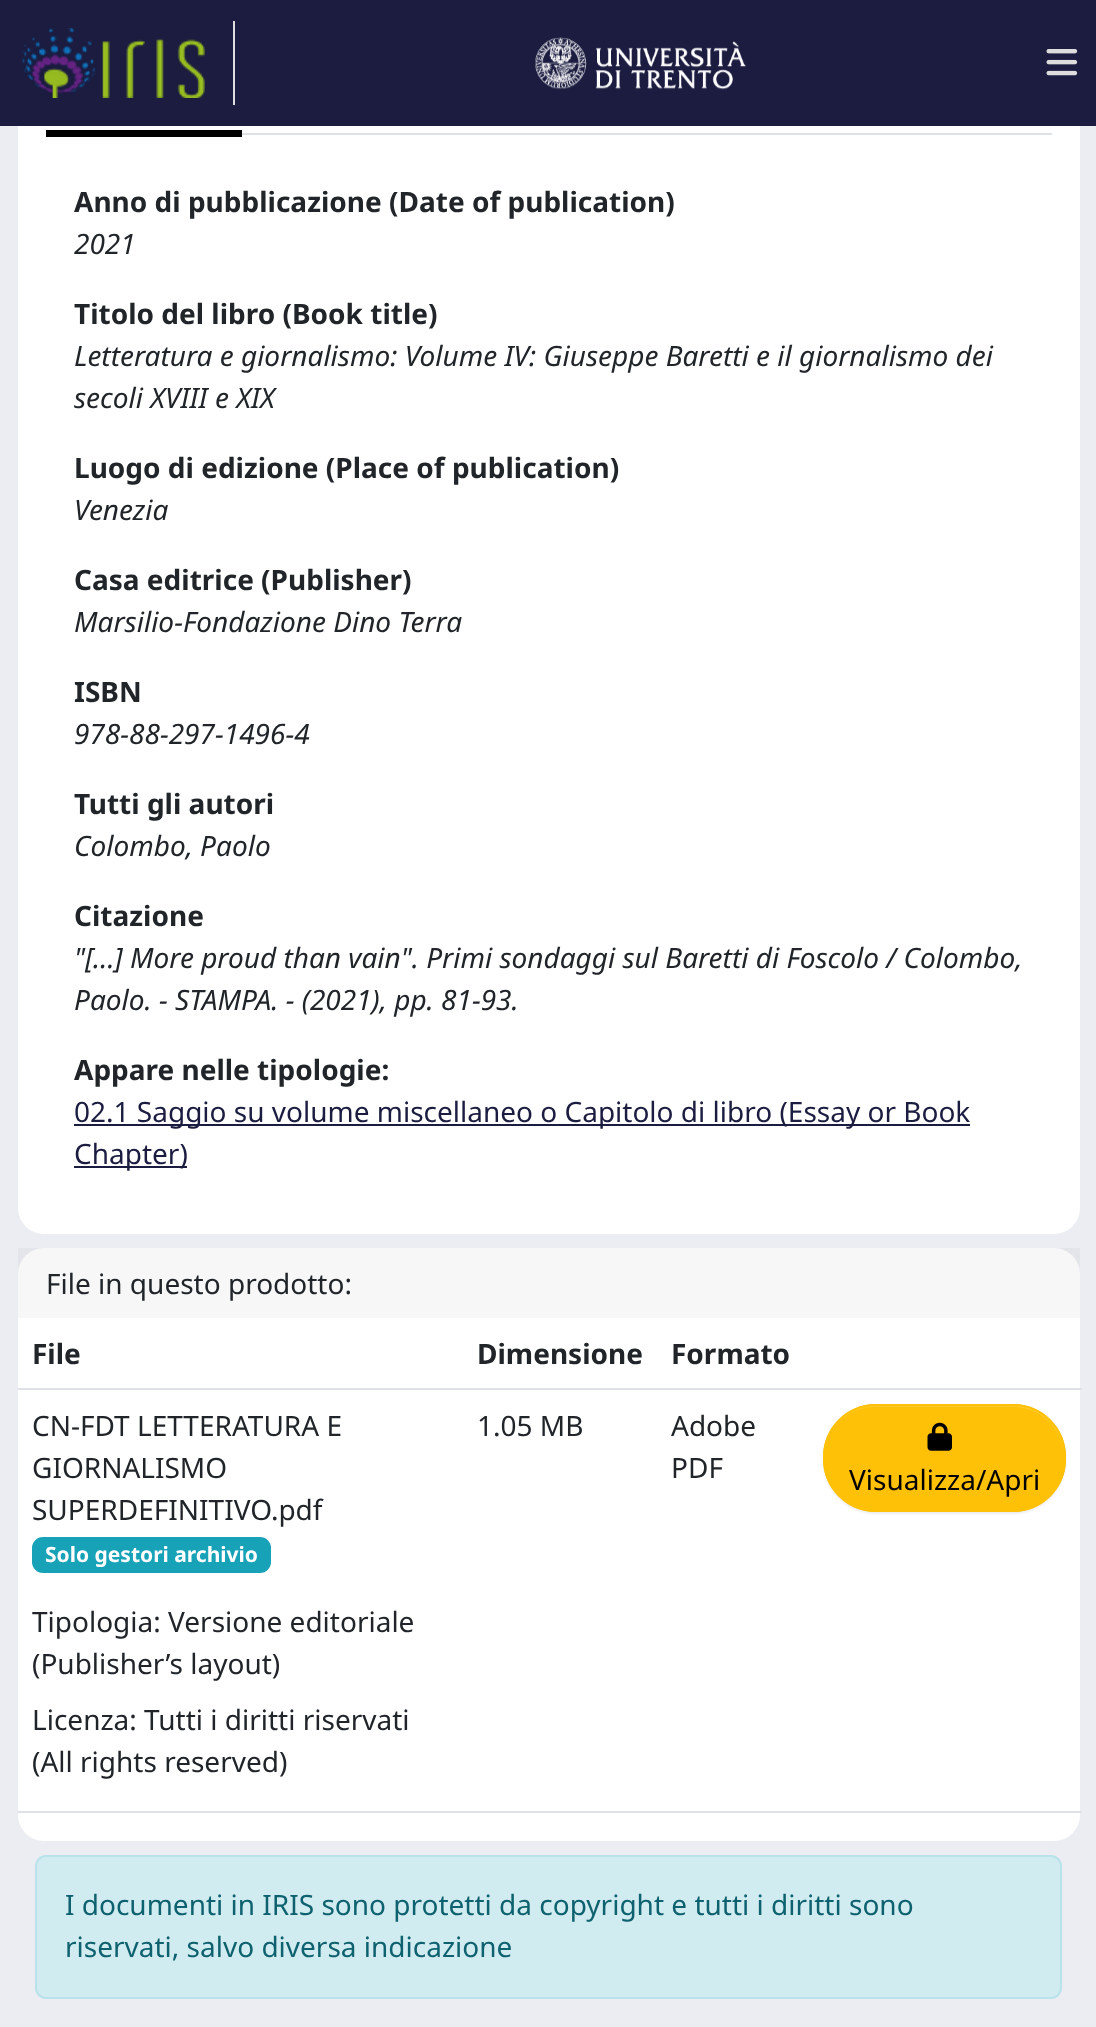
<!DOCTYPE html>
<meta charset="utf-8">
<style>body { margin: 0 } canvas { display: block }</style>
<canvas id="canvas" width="1096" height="2027"></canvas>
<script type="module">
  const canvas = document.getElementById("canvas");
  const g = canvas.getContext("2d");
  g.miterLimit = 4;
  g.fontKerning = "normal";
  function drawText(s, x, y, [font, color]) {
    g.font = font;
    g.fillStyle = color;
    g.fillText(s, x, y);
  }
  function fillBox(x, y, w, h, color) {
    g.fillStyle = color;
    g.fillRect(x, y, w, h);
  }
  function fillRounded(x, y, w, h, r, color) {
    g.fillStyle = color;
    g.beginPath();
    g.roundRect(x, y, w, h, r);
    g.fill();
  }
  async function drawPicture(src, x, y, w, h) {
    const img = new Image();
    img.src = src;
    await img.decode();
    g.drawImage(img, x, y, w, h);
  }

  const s1 = ["bold 28px Noto Sans", "#212529"];
  const s2 = ["italic 28px Noto Sans", "#212529"];
  const s3 = ["28px Noto Sans", "#1B1C40"];
  const s4 = ["28px Noto Sans", "#212529"];
  const s5 = ["bold 21px Noto Sans", "#FFFFFF"];
  const s6 = ["28px Noto Sans", "#000000"];
  const s7 = ["28px Noto Sans", "#0E616E"];

  fillBox(0, 0, 1096, 2027, "#ECEDF2");
  fillRounded(18, -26, 1062, 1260, 26, "#FFFFFF");
  fillBox(0, 0, 1096, 126, "#1B1C40");
  fillBox(233, 21, 2, 84, "#DDDDDD");
  await drawPicture("pic1.png", 21, 28, 184, 70);
  await drawPicture("pic2.png", 535, 37, 211, 53);
  await drawPicture("pic3.png", 1046, 49, 32, 27);
  fillBox(242, 133, 810, 2, "#DEE2E6");
  fillBox(46, 130, 196, 7, "#000000");
  drawText("Anno di pubblicazione (Date of publication)", 74, 212, s1);
  drawText("2021", 74, 254, s2);
  drawText("Titolo del libro (Book title)", 74, 324, s1);
  drawText("Letteratura e giornalismo: Volume IV: Giuseppe Baretti e il giornalismo dei", 74, 366, s2);
  drawText("secoli XVIII e XIX", 74, 408, s2);
  drawText("Luogo di edizione (Place of publication)", 74, 478, s1);
  drawText("Venezia", 74, 520, s2);
  drawText("Casa editrice (Publisher)", 74, 590, s1);
  drawText("Marsilio-Fondazione Dino Terra", 74, 632, s2);
  drawText("ISBN", 74, 702, s1);
  drawText("978-88-297-1496-4", 74, 744, s2);
  drawText("Tutti gli autori", 74, 814, s1);
  drawText("Colombo, Paolo", 74, 856, s2);
  drawText("Citazione", 74, 926, s1);
  drawText("\"[...] More proud than vain\". Primi sondaggi sul Baretti di Foscolo / Colombo,", 74, 968, s2);
  drawText("Paolo. - STAMPA. - (2021), pp. 81-93.", 74, 1010, s2);
  drawText("Appare nelle tipologie:", 74, 1080, s1);
  fillBox(74, 1124, 896, 2, "#1B1C40");
  drawText("02.1 Saggio su volume miscellaneo o Capitolo di libro (Essay or Book", 74, 1122, s3);
  fillBox(74, 1166, 113, 2, "#1B1C40");
  drawText("Chapter)", 74, 1164, s3);
  fillRounded(18, 1248, 1062, 593, 26, "#FFFFFF");
  fillBox(18, 1248, 1062, 70, "rgba(0, 0, 0, 0.03)");
  drawText("File in questo prodotto:", 46, 1294, s4);
  drawText("File", 32, 1364, s1);
  drawText("Dimensione", 477, 1364, s1);
  drawText("Formato", 671, 1364, s1);
  fillBox(18, 1388, 1064, 2, "#DEE2E6");
  drawText("CN-FDT LETTERATURA E", 32, 1436, s4);
  drawText("GIORNALISMO", 32, 1478, s4);
  drawText("SUPERDEFINITIVO.pdf", 32, 1520, s4);
  fillRounded(32, 1537, 239, 36, 11, "#17A2B8");
  drawText("Solo gestori archivio", 45, 1562, s5);
  drawText("Tipologia: Versione editoriale", 32, 1632, s4);
  drawText("(Publisher’s layout)", 32, 1674, s4);
  drawText("Licenza: Tutti i diritti riservati", 32, 1730, s4);
  drawText("(All rights reserved)", 32, 1772, s4);
  drawText("1.05 MB", 477, 1436, s4);
  drawText("Adobe", 671, 1436, s4);
  drawText("PDF", 671, 1478, s4);
  fillBox(18, 1811, 1064, 2, "#DEE2E6");
  g.fillStyle = "rgba(0, 0, 0, 0.07)";
  g.filter = "blur(1px)";
  g.beginPath();
  g.roundRect(823, 1405, 243, 109, 53);
  g.fill();
  g.filter = "none";
  fillRounded(823, 1404, 243, 108, 53, "#FFC107");
  g.fillStyle = "#FFCA2C";
  g.beginPath();
  g.moveTo(875, 1407);
  g.lineTo(1013, 1407);
  g.bezierCurveTo(1041, 1407, 1064, 1430, 1064, 1458);
  g.lineTo(1064, 1456);
  g.bezierCurveTo(1064, 1428, 1041, 1405, 1013, 1405);
  g.lineTo(875, 1405);
  g.bezierCurveTo(847, 1405, 824, 1428, 824, 1456);
  g.lineTo(824, 1458);
  g.bezierCurveTo(824, 1430, 847, 1407, 875, 1407);
  g.closePath();
  g.fill();
  g.beginPath();
  g.roundRect(824, 1405, 241, 106, 52);
  g.strokeStyle = "#FFC107";
  g.lineWidth = 2;
  g.stroke();
  await drawPicture("pic4.png", 927, 1422, 25, 29);
  drawText("Visualizza/Apri", 849, 1490, s6);
  g.fillStyle = "#D1ECF1";
  g.beginPath();
  g.roundRect(36, 1856, 1025, 142, 10);
  g.fill();
  g.strokeStyle = "#B9E3EA";
  g.stroke();
  drawText("I documenti in IRIS sono protetti da copyright e tutti i diritti sono", 65, 1915, s7);
  drawText("riservati, salvo diversa indicazione", 65, 1957, s7);
</script>
